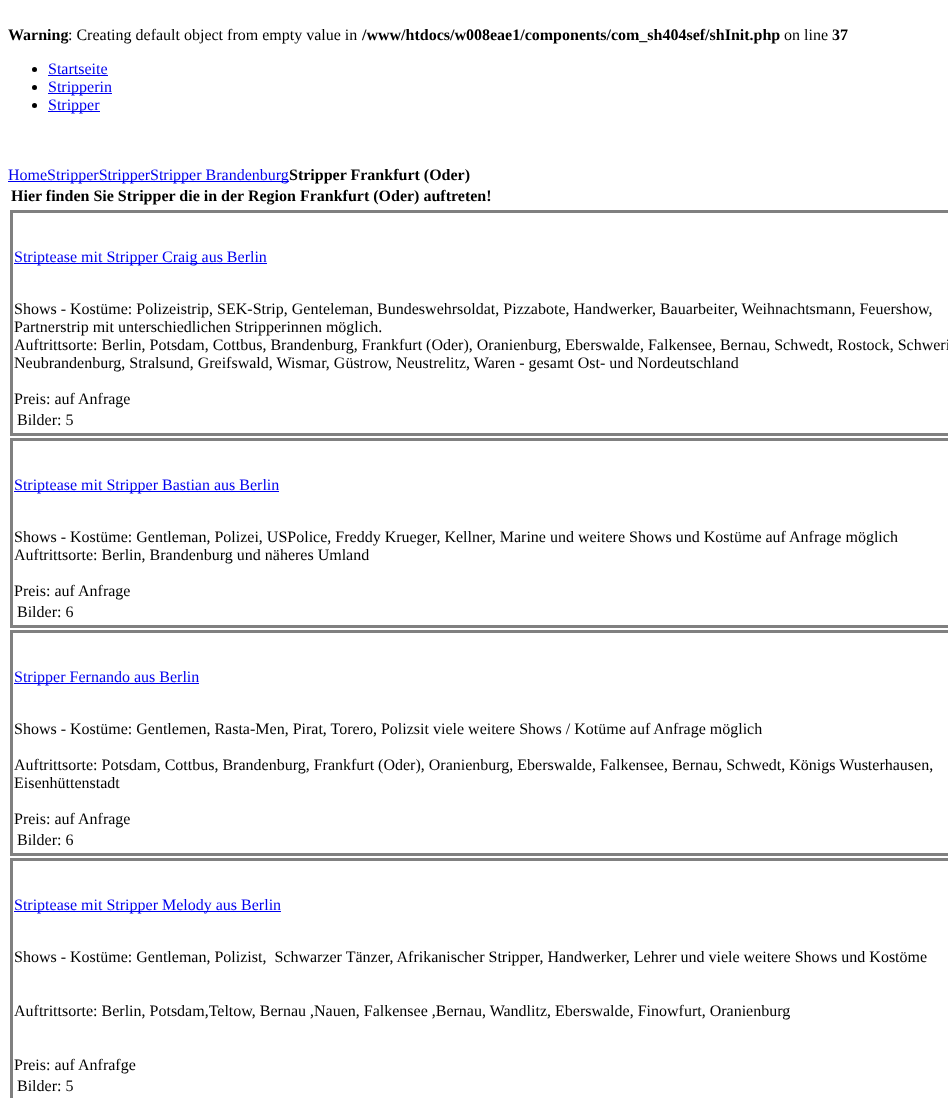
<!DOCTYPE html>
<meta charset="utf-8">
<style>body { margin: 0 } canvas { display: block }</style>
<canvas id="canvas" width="948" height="1098"></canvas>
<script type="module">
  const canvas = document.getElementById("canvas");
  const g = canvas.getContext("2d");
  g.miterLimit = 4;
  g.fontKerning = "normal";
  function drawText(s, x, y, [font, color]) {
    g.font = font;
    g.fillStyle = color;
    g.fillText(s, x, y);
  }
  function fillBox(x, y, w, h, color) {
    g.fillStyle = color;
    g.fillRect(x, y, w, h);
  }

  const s1 = ["bold 16px Liberation Serif", "#000000"];
  const s2 = ["16px Liberation Serif", "#000000"];
  const s3 = ["16px Liberation Serif", "#0000EE"];

  fillBox(0, 0, 948, 1098, "#FFFFFF");
  drawText("Warning", 8, 40, s1);
  drawText(": Creating default object from empty value in", 68, 40, s2);
  drawText("/www/htdocs/w008eae1/components/com_sh404sef/shInit.php", 362, 40, s1);
  drawText("on line", 784, 40, s2);
  drawText("37", 832, 40, s1);
  g.beginPath();
  g.arc(34.5, 69.5, 2.5, 0, Math.PI * 2);
  g.fill();
  drawText("Startseite", 48, 74, s3);
  fillBox(48, 75, 60, 1, "#0000EE");
  g.fillStyle = "#000000";
  g.beginPath();
  g.arc(34.5, 87.5, 2.5, 0, Math.PI * 2);
  g.fill();
  fillBox(48, 93, 64, 1, "#0000EE");
  drawText("Stripperin", 48, 92, s3);
  g.fillStyle = "#000000";
  g.beginPath();
  g.arc(34.5, 105.5, 2.5, 0, Math.PI * 2);
  g.fill();
  fillBox(48, 111, 52, 1, "#0000EE");
  drawText("Stripper", 48, 110, s3);
  fillBox(8, 181, 142, 1, "#0000EE");
  drawText("HomeStripperStripper", 8, 180, s3);
  fillBox(150, 181, 139, 1, "#0000EE");
  drawText("Stripper Brandenburg", 150, 180, s3);
  drawText("Stripper Frankfurt (Oder)", 289, 180, s1);
  drawText("Hier finden Sie Stripper die in der Region Frankfurt (Oder) auftreten!", 11, 201, s1);
  g.strokeStyle = "#808080";
  g.lineWidth = 3;
  g.strokeRect(11.5, 211.5, 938, 223);
  fillBox(14, 263, 253, 1, "#0000EE");
  drawText("Striptease mit Stripper Craig aus Berlin", 14, 262, s3);
  drawText("Shows - Kostüme: Polizeistrip, SEK-Strip, Genteleman, Bundeswehrsoldat, Pizzabote, Handwerker, Bauarbeiter, Weihnachtsmann, Feuershow,", 14, 314, s2);
  drawText("Partnerstrip mit unterschiedlichen Stripperinnen möglich.", 14, 332, s2);
  drawText("Auftrittsorte: Berlin, Potsdam, Cottbus, Brandenburg, Frankfurt (Oder), Oranienburg, Eberswalde, Falkensee, Bernau, Schwedt, Rostock, Schweri", 14, 350, s2);
  drawText("Neubrandenburg, Stralsund, Greifswald, Wismar, Güstrow, Neustrelitz, Waren - gesamt Ost- und Nordeutschland", 14, 368, s2);
  drawText("Preis: auf Anfrage", 14, 404, s2);
  drawText("Bilder: 5", 17, 425, s2);
  g.strokeRect(11.5, 439.5, 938, 187);
  fillBox(14, 491, 265, 1, "#0000EE");
  drawText("Striptease mit Stripper Bastian aus Berlin", 14, 490, s3);
  drawText("Shows - Kostüme: Gentleman, Polizei, USPolice, Freddy Krueger, Kellner, Marine und weitere Shows und Kostüme auf Anfrage möglich", 14, 542, s2);
  drawText("Auftrittsorte: Berlin, Brandenburg und näheres Umland", 14, 560, s2);
  drawText("Preis: auf Anfrage", 14, 596, s2);
  drawText("Bilder: 6", 17, 617, s2);
  g.strokeRect(11.5, 631.5, 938, 223);
  fillBox(14, 683, 185, 1, "#0000EE");
  drawText("Stripper Fernando aus Berlin", 14, 682, s3);
  drawText("Shows - Kostüme: Gentlemen, Rasta-Men, Pirat, Torero, Polizsit viele weitere Shows / Kotüme auf Anfrage möglich", 14, 734, s2);
  drawText("Auftrittsorte: Potsdam, Cottbus, Brandenburg, Frankfurt (Oder), Oranienburg, Eberswalde, Falkensee, Bernau, Schwedt, Königs Wusterhausen,", 14, 770, s2);
  drawText("Eisenhüttenstadt", 14, 788, s2);
  drawText("Preis: auf Anfrage", 14, 824, s2);
  drawText("Bilder: 6", 17, 845, s2);
  g.strokeRect(11.5, 859.5, 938, 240);
  fillBox(14, 911, 267, 1, "#0000EE");
  drawText("Striptease mit Stripper Melody aus Berlin", 14, 910, s3);
  drawText("Shows - Kostüme: Gentleman, Polizist,  Schwarzer Tänzer, Afrikanischer Stripper, Handwerker, Lehrer und viele weitere Shows und Kostöme", 14, 962, s2);
  drawText("Auftrittsorte: Berlin, Potsdam,Teltow, Bernau ,Nauen, Falkensee ,Bernau, Wandlitz, Eberswalde, Finowfurt, Oranienburg", 14, 1016, s2);
  drawText("Preis: auf Anfrafge", 14, 1070, s2);
  drawText("Bilder: 5", 17, 1091, s2);
</script>
